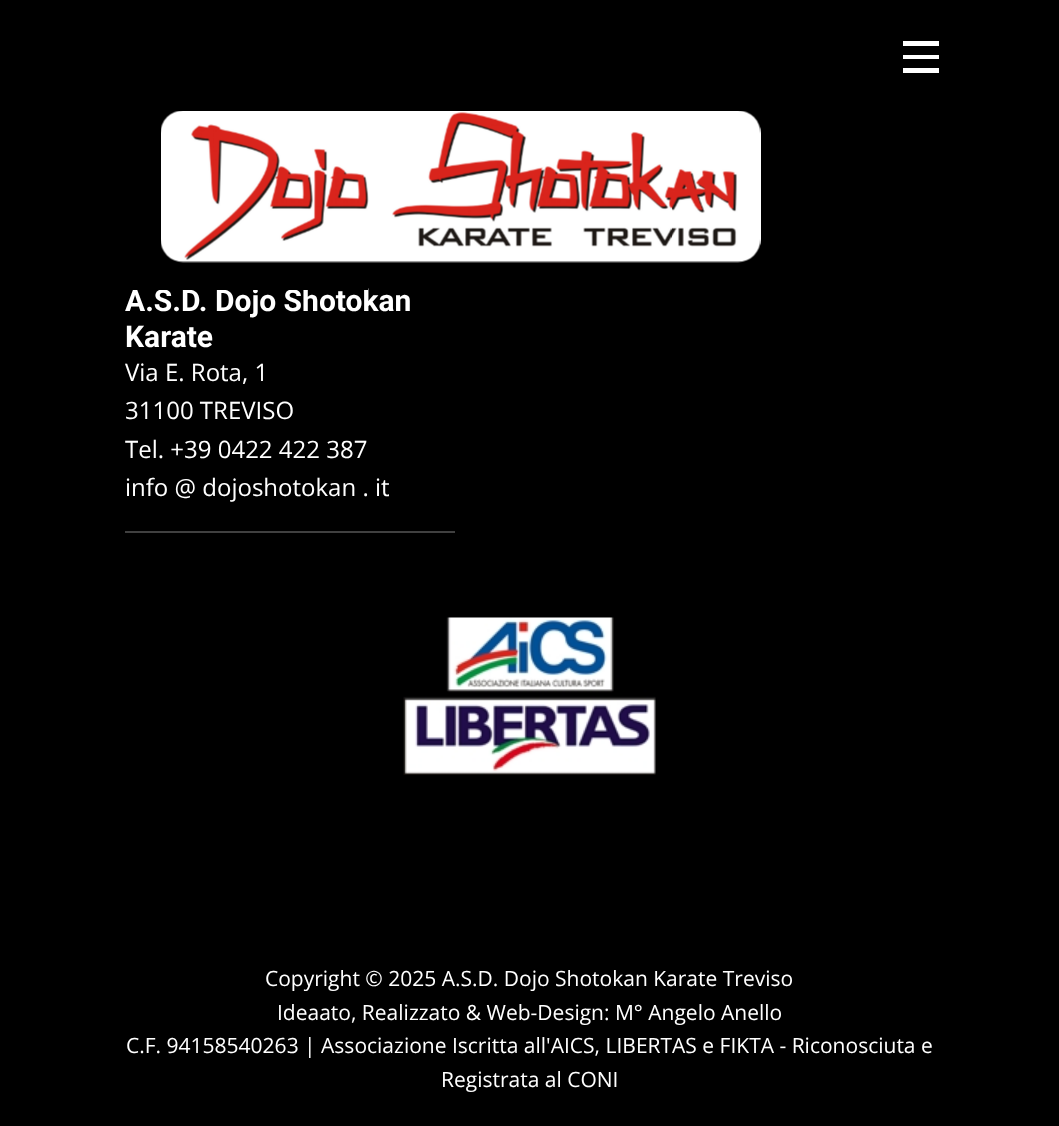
<!DOCTYPE html>
<meta charset="utf-8">
<style>body { margin: 0 } canvas { display: block }</style>
<canvas id="canvas" width="1059" height="1126"></canvas>
<script type="module">
  const canvas = document.getElementById("canvas");
  const g = canvas.getContext("2d");
  g.miterLimit = 4;
  g.fontKerning = "normal";
  function drawText(s, x, y, [font, color]) {
    g.font = font;
    g.fillStyle = color;
    g.fillText(s, x, y);
  }
  function fillBox(x, y, w, h, color) {
    g.fillStyle = color;
    g.fillRect(x, y, w, h);
  }
  async function drawPicture(src, x, y, w, h) {
    const img = new Image();
    img.src = src;
    await img.decode();
    g.drawImage(img, x, y, w, h);
  }

  const s1 = ["bold 30px Roboto", "#FFFFFF"];
  const s2 = ["24px Open Sans", "#FFFFFF"];
  const s3 = ["21px Open Sans", "#FFFFFF"];

  fillBox(0, 0, 1059, 1126, "#000000");
  g.fillStyle = "rgba(0, 0, 0, 0.4)";
  g.filter = "blur(15px)";
  g.beginPath();
  g.rect(8, 8, 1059, 289);
  g.fill();
  g.filter = "none";
  drawText("A.S.D. Dojo Shotokan", 125, 311, s1);
  fillBox(132, 288, 236, 2, "#000000");
  fillBox(903, 41, 36, 5, "#FFFFFF");
  fillBox(903, 55, 36, 4, "#FFFFFF");
  fillBox(903, 68, 36, 5, "#FFFFFF");
  await drawPicture("pic1.png", 161, 111, 600, 152);
  drawText("Karate", 125, 347, s1);
  drawText("Via E. Rota, 1", 125, 381, s2);
  drawText("31100 TREVISO", 125, 419, s2);
  drawText("Tel. +39 0422 422 387", 125, 458, s2);
  drawText("info @ dojoshotokan . it", 125, 496, s2);
  fillBox(125, 531, 330, 2, "#404040");
  await drawPicture("pic2.png", 403, 617, 253, 158);
  drawText("Copyright © 2025 A.S.D. Dojo Shotokan Karate Treviso", 265, 986, s3);
  drawText("Ideaato, Realizzato & Web-Design: M° Angelo Anello", 277, 1020, s3);
  drawText("C.F. 94158540263 | Associazione Iscritta all'AICS, LIBERTAS e FIKTA - Riconosciuta e", 126, 1053, s3);
  drawText("Registrata al CONI", 441, 1087, s3);
</script>
